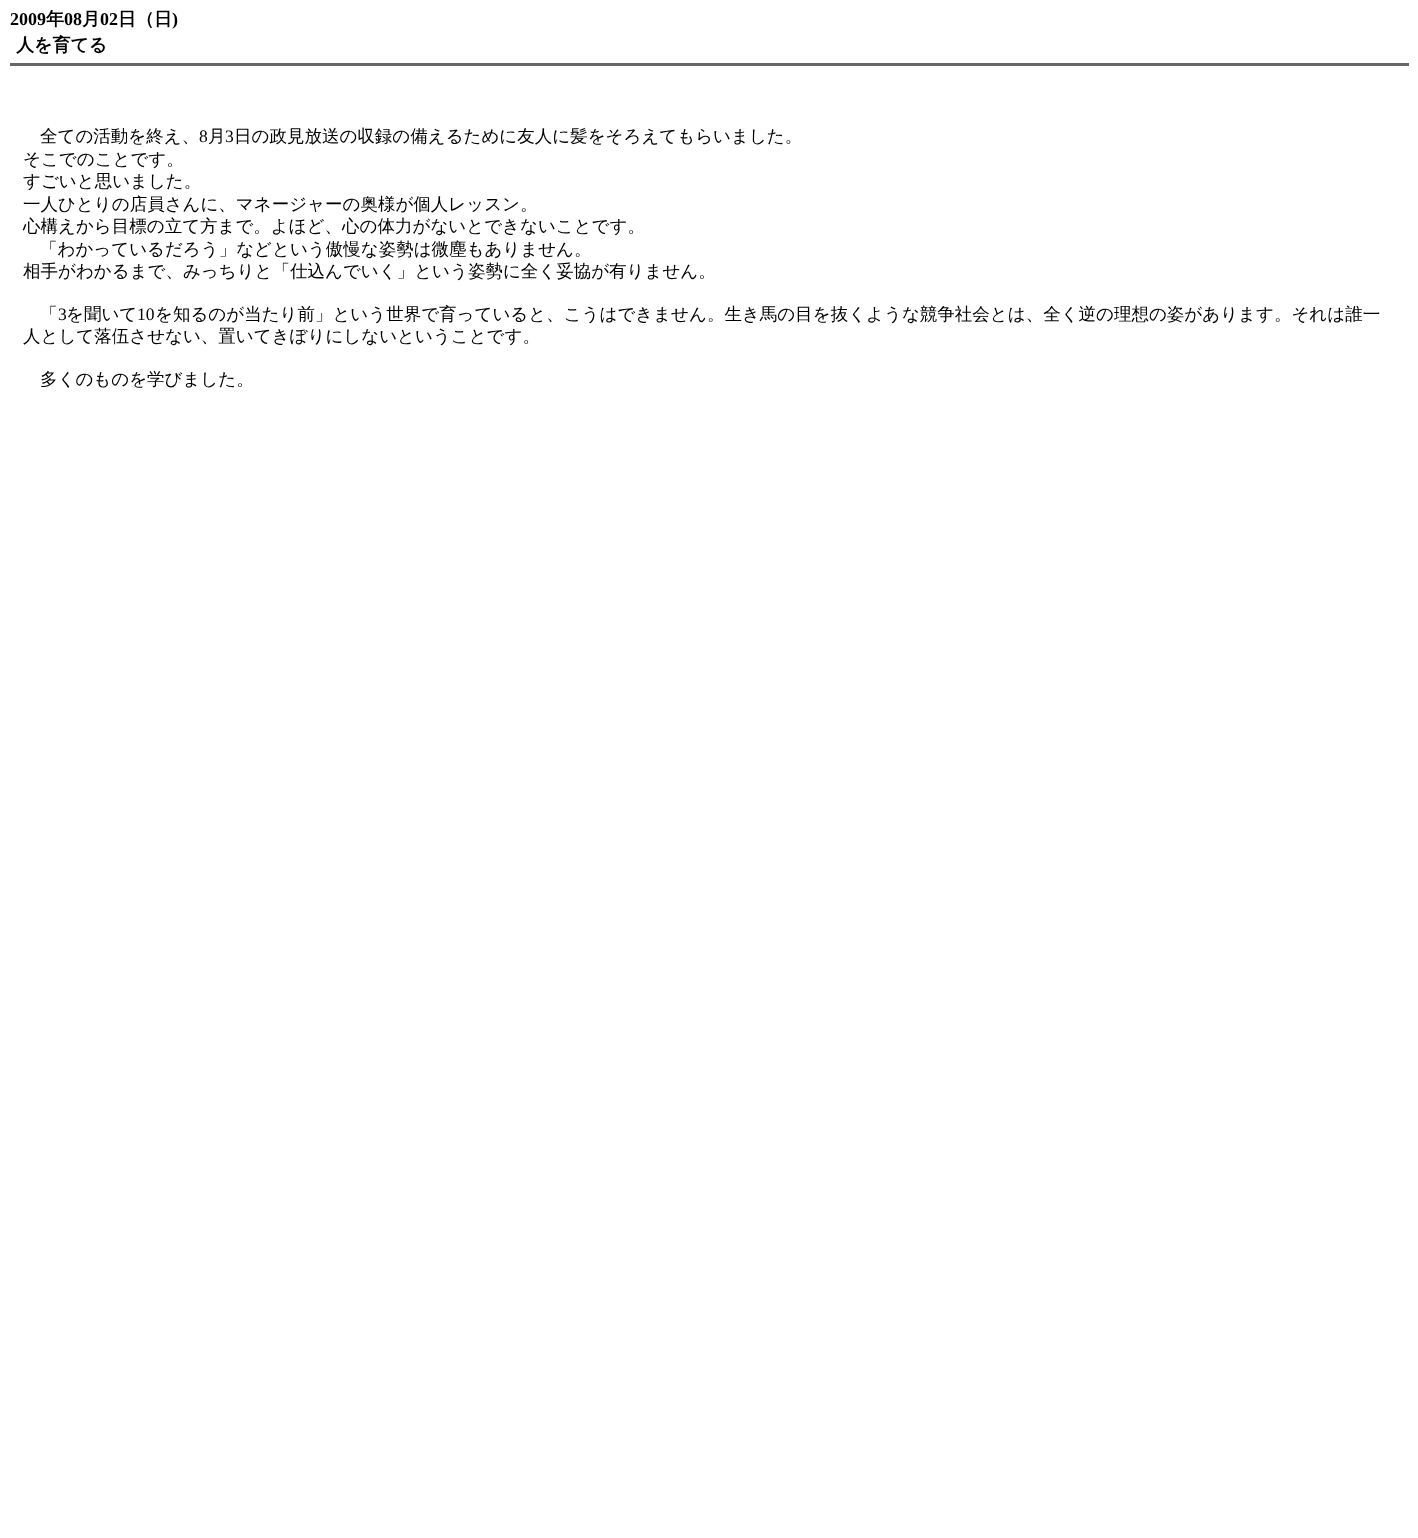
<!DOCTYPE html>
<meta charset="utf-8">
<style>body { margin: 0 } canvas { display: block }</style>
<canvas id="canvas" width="1418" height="1538"></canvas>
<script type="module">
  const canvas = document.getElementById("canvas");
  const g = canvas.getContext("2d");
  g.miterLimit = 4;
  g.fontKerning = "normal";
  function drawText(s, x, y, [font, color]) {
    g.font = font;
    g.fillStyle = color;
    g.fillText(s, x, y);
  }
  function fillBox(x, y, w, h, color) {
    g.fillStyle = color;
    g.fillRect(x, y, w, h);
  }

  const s1 = ["bold 18px Liberation Serif", "#000000"];
  const s2 = ["bold 18px WenQuanYi Zen Hei", "#000000"];
  const s3 = ["500 17.5px WenQuanYi Zen Hei", "#000000"];
  const s4 = ["17.5px Liberation Serif", "#000000"];

  fillBox(0, 0, 1418, 1538, "#FFFFFF");
  drawText("2009", 10, 25, s1);
  drawText("年", 46, 25, s2);
  drawText("08", 64, 25, s1);
  drawText("月", 82, 25, s2);
  drawText("02", 100, 25, s1);
  drawText("日（日", 118, 25, s2);
  drawText(")", 172, 25, s1);
  fillBox(10, 63, 1399, 3, "#666666");
  drawText("人を育てる", 16, 51, s2);
  drawText("全ての活動を終え、", 40, 142, s3);
  drawText("8", 199, 142, s4);
  drawText("月", 208, 142, s3);
  drawText("3", 225, 142, s4);
  drawText("日の政見放送の収録の備えるために友人に髪をそろえてもらいました。", 234, 142, s3);
  drawText("そこでのことです。", 23, 165, s3);
  drawText("すごいと思いました。", 23, 187, s3);
  drawText("一人ひとりの店員さんに、マネージャーの奥様が個人レッスン。", 23, 210, s3);
  drawText("心構えから目標の立て方まで。よほど、心の体力がないとできないことです。", 23, 232, s3);
  drawText("「わかっているだろう」などという傲慢な姿勢は微塵もありません。", 40, 255, s3);
  drawText("相手がわかるまで、みっちりと「仕込んでいく」という姿勢に全く妥協が有りません。", 23, 277, s3);
  drawText("「", 40, 320, s3);
  drawText("3", 58, 320, s4);
  drawText("を聞いて", 66, 320, s3);
  drawText("10", 137, 320, s4);
  drawText("を知るのが当たり前」という世界で育っていると、こうはできません。生き馬の目を抜くような競争社会とは、全く逆の理想の姿があります。それは誰一", 155, 320, s3);
  drawText("人として落伍させない、置いてきぼりにしないということです。", 23, 342, s3);
  drawText("多くのものを学びました。", 40, 385, s3);
</script>
